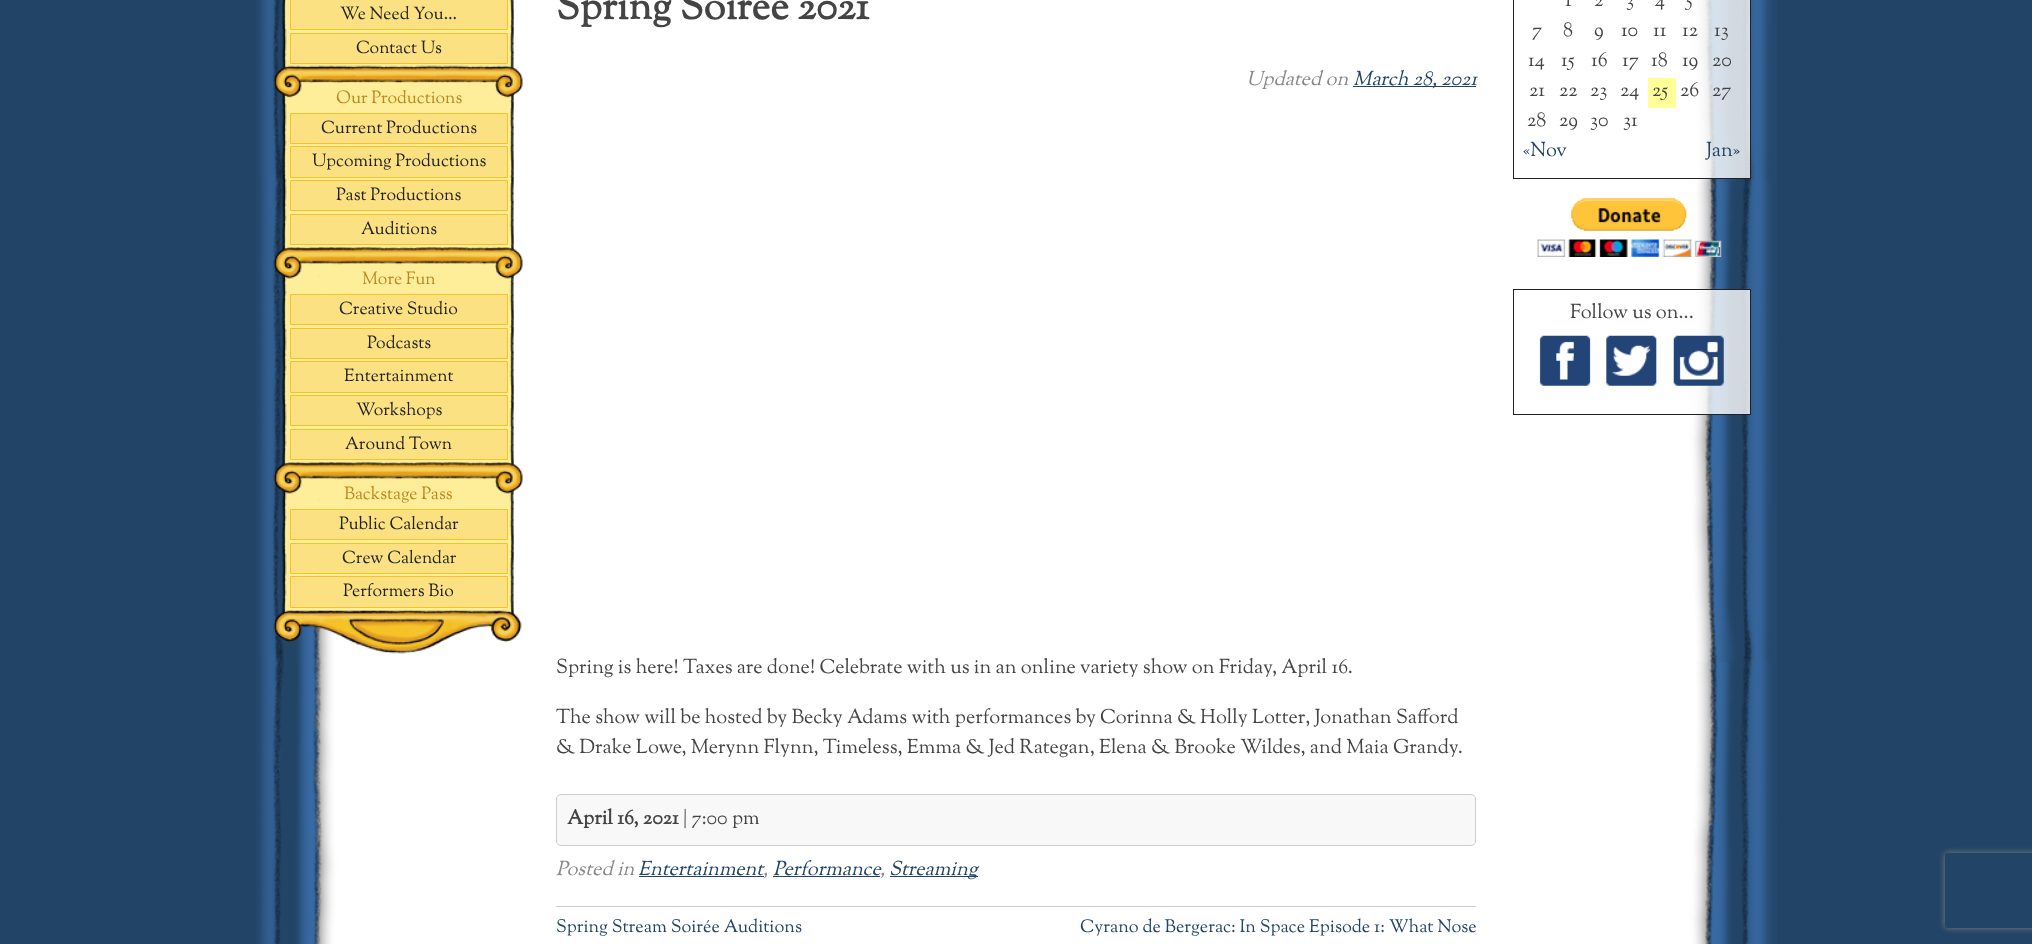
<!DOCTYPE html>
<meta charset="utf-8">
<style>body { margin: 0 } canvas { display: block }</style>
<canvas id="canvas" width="2032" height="944"></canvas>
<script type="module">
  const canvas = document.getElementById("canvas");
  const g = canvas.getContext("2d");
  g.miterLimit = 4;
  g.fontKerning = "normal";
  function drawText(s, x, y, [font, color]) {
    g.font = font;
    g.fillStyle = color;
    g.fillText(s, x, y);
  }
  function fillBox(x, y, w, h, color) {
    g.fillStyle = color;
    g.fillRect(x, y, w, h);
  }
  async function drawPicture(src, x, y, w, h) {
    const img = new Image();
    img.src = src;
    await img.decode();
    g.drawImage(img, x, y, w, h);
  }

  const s1 = ["17.5px Sorts Mill Goudy", "#222222"];
  const s2 = ["17.5px Sorts Mill Goudy", "#BB8822"];
  const s3 = ["bold 40px Sorts Mill Goudy", "#444444"];
  const s4 = ["italic 20px Sorts Mill Goudy", "#888888"];
  const s5 = ["italic 20px Sorts Mill Goudy", "#224466"];
  const s6 = ["20px Sorts Mill Goudy", "#444444"];
  const s7 = ["bold 20px Sorts Mill Goudy", "#444444"];
  const s8 = ["18px Sorts Mill Goudy", "#224466"];
  const s9 = ["20px Sorts Mill Goudy", "#224466"];

  fillBox(0, 0, 2032, 944, "#224466");
  await drawPicture("pic1.png", 256, 0, 1521, 944);
  await drawPicture("pic2.png", 282, 0, 233, 616);
  g.fillStyle = "#FBE182";
  g.beginPath();
  g.rect(290.5, -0.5, 217, 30);
  g.fill();
  g.strokeStyle = "#F5C227";
  g.stroke();
  drawText("We Need You…", 340, 19, s1);
  g.fillStyle = "#FBE182";
  g.beginPath();
  g.rect(290.5, 33.5, 217, 30);
  g.fill();
  g.stroke();
  drawText("Contact Us", 356, 53, s1);
  await drawPicture("pic3.png", 273, 65, 250, 33);
  drawText("Our Productions", 336, 103, s2);
  g.fillStyle = "#FBE182";
  g.beginPath();
  g.rect(290.5, 113.5, 217, 30);
  g.fill();
  g.stroke();
  drawText("Current Productions", 321, 133, s1);
  g.fillStyle = "#FBE182";
  g.beginPath();
  g.rect(290.5, 146.5, 217, 31);
  g.fill();
  g.stroke();
  drawText("Upcoming Productions", 312, 166, s1);
  g.fillStyle = "#FBE182";
  g.beginPath();
  g.rect(290.5, 180.5, 217, 30);
  g.fill();
  g.stroke();
  drawText("Past Productions", 336, 200, s1);
  g.fillStyle = "#FBE182";
  g.beginPath();
  g.rect(290.5, 214.5, 217, 30);
  g.fill();
  g.stroke();
  drawText("Auditions", 361, 234, s1);
  await drawPicture("pic4.png", 273, 247, 250, 32);
  drawText("More Fun", 362, 284, s2);
  g.fillStyle = "#FBE182";
  g.beginPath();
  g.rect(290.5, 294.5, 217, 30);
  g.fill();
  g.stroke();
  drawText("Creative Studio", 339, 314, s1);
  g.fillStyle = "#FBE182";
  g.beginPath();
  g.rect(290.5, 328.5, 217, 30);
  g.fill();
  g.stroke();
  drawText("Podcasts", 367, 348, s1);
  g.fillStyle = "#FBE182";
  g.beginPath();
  g.rect(290.5, 361.5, 217, 31);
  g.fill();
  g.stroke();
  drawText("Entertainment", 344, 381, s1);
  g.fillStyle = "#FBE182";
  g.beginPath();
  g.rect(290.5, 395.5, 217, 30);
  g.fill();
  g.stroke();
  drawText("Workshops", 356, 415, s1);
  g.fillStyle = "#FBE182";
  g.beginPath();
  g.rect(290.5, 429.5, 217, 30);
  g.fill();
  g.stroke();
  drawText("Around Town", 345, 449, s1);
  await drawPicture("pic5.png", 273, 462, 250, 32);
  drawText("Backstage Pass", 344, 499, s2);
  g.fillStyle = "#FBE182";
  g.beginPath();
  g.rect(290.5, 509.5, 217, 30);
  g.fill();
  g.stroke();
  drawText("Public Calendar", 339, 529, s1);
  g.fillStyle = "#FBE182";
  g.beginPath();
  g.rect(290.5, 543.5, 217, 30);
  g.fill();
  g.stroke();
  drawText("Crew Calendar", 342, 563, s1);
  g.fillStyle = "#FBE182";
  g.beginPath();
  g.rect(290.5, 576.5, 217, 31);
  g.fill();
  g.stroke();
  drawText("Performers Bio", 343, 596, s1);
  await drawPicture("pic6.png", 273, 610, 249, 44);
  drawText("Spring Soirée 2021", 556, 19, s3);
  drawText("Updated on", 1246, 85, s4);
  fillBox(1353, 86, 123, 1, "#224466");
  drawText("March 28, 2021", 1353, 85, s5);
  drawText("Spring is here! Taxes are done! Celebrate with us in an online variety show on Friday, April 16.", 556, 673, s6);
  drawText("The show will be hosted by Becky Adams with performances by Corinna & Holly Lotter, Jonathan Safford", 556, 723, s6);
  drawText("& Drake Lowe, Merynn Flynn, Timeless, Emma & Jed Rategan, Elena & Brooke Wildes, and Maia Grandy.", 556, 753, s6);
  g.fillStyle = "#F8F8F8";
  g.beginPath();
  g.roundRect(556.5, 794.5, 919, 51, 4.5);
  g.fill();
  g.strokeStyle = "#CCCCCC";
  g.stroke();
  drawText("April 16, 2021", 567, 824, s7);
  drawText("| 7:00 pm", 683, 824, s6);
  drawText("Posted in", 556, 875, s4);
  drawText("Entertainment", 638, 875, s5);
  drawText("Performance", 773, 875, s5);
  fillBox(890, 876, 88, 1, "#224466");
  drawText("Streaming", 889, 875, s5);
  drawText(",", 763, 875, s4);
  fillBox(639, 876, 125, 1, "#224466");
  drawText(",", 880, 875, s4);
  fillBox(773, 876, 107, 1, "#224466");
  fillBox(556, 906, 920, 1, "#CCCCCC");
  drawText("Spring Stream Soirée Auditions", 556, 932, s8);
  g.save();
  g.beginPath();
  g.rect(556, 908, 920, 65);
  g.clip();
  drawText("Cyrano de Bergerac: In Space Episode 1: What Nose", 1080, 932, s8);
  g.restore();
  fillBox(1693, 0, 57, 178, "rgba(255, 255, 255, 0.8)");
  g.strokeStyle = "#222222";
  g.strokeRect(1513.5, -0.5, 237, 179);
  drawText("1", 1565, 6, s6);
  drawText("2", 1594, 6, s6);
  drawText("3", 1626, 6, s6);
  drawText("4", 1655, 6, s6);
  drawText("5", 1686, 6, s6);
  drawText("7", 1532, 36, s6);
  drawText("8", 1563, 36, s6);
  drawText("9", 1594, 36, s6);
  drawText("10", 1621, 36, s6);
  drawText("11", 1653, 36, s6);
  drawText("12", 1682, 36, s6);
  drawText("13", 1714, 36, s6);
  drawText("14", 1528, 66, s6);
  drawText("15", 1561, 66, s6);
  drawText("16", 1591, 66, s6);
  drawText("17", 1622, 66, s6);
  drawText("18", 1651, 66, s6);
  drawText("19", 1682, 66, s6);
  drawText("20", 1712, 66, s6);
  drawText("21", 1529, 96, s6);
  drawText("22", 1559, 96, s6);
  drawText("23", 1590, 96, s6);
  drawText("24", 1620, 96, s6);
  fillBox(1648, 78, 28, 30, "#FFFF99");
  drawText("25", 1652, 96, s6);
  drawText("26", 1680, 96, s6);
  drawText("27", 1712, 96, s6);
  drawText("28", 1527, 126, s6);
  drawText("29", 1559, 126, s6);
  drawText("30", 1590, 126, s6);
  drawText("31", 1623, 126, s6);
  drawText("«Nov", 1523, 156, s9);
  drawText("Jan»", 1706, 156, s9);
  await drawPicture("pic7.png", 1537, 198, 185, 59);
  fillBox(1693, 290, 57, 124, "rgba(255, 255, 255, 0.8)");
  g.strokeRect(1513.5, 289.5, 237, 125);
  drawText("Follow us on...", 1570, 318, s6);
  await drawPicture("pic8.png", 1539, 335, 52, 51);
  await drawPicture("pic9.png", 1606, 335, 51, 51);
  await drawPicture("pic10.png", 1673, 335, 51, 51);
  g.save();
  g.beginPath();
  g.moveTo(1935, 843);
  g.lineTo(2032, 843);
  g.lineTo(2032, 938);
  g.lineTo(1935, 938);
  g.closePath();
  g.moveTo(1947.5, 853);
  g.lineTo(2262.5, 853);
  g.bezierCurveTo(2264, 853, 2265, 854, 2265, 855.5);
  g.lineTo(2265, 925.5);
  g.bezierCurveTo(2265, 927, 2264, 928, 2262.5, 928);
  g.lineTo(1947.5, 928);
  g.bezierCurveTo(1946, 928, 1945, 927, 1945, 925.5);
  g.lineTo(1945, 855.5);
  g.bezierCurveTo(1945, 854, 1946, 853, 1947.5, 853);
  g.closePath();
  g.clip("evenodd");
  g.fillStyle = "#808080";
  g.filter = "blur(3px)";
  g.beginPath();
  g.roundRect(1945, 853, 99, 75, 2.5);
  g.fill();
  g.filter = "none";
  g.restore();
</script>
